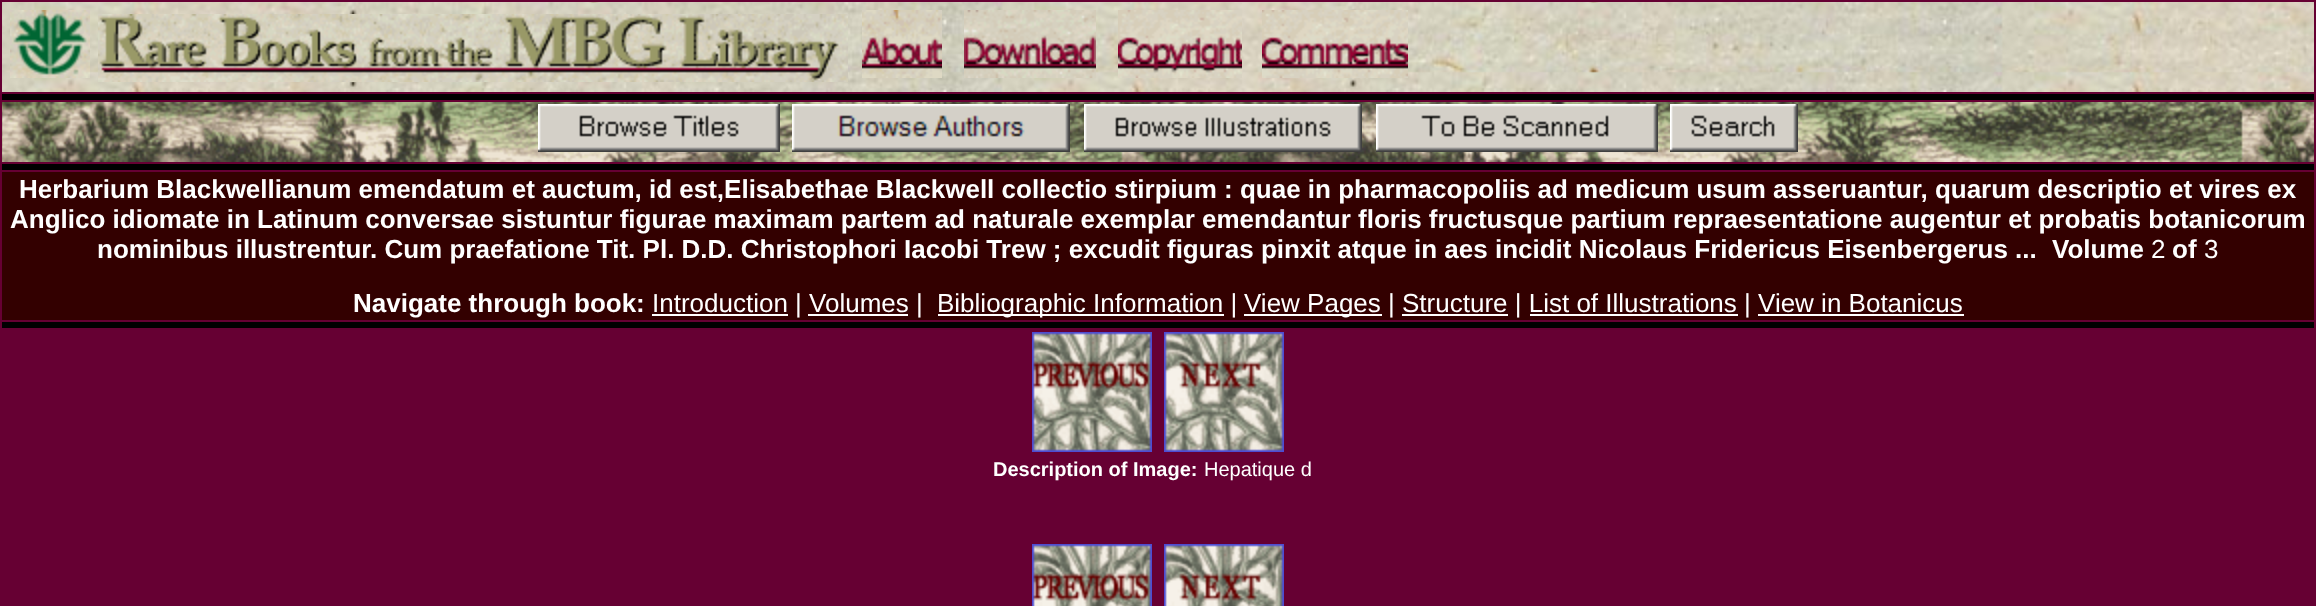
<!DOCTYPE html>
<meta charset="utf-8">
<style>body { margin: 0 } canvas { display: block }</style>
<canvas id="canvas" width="2316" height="606"></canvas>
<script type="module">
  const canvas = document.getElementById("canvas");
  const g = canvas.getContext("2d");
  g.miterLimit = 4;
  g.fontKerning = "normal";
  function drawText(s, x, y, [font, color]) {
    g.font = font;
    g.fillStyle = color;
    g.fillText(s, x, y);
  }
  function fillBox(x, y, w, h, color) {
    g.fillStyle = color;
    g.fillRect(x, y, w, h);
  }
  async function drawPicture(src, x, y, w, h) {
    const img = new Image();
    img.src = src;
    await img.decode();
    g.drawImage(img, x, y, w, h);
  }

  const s1 = ["bold 26px Liberation Sans", "#FFFFFF"];
  const s2 = ["26px Liberation Sans", "#FFFFFF"];
  const s3 = ["bold 20px Liberation Sans", "#FFFFFF"];
  const s4 = ["20px Liberation Sans", "#FFFFFF"];

  fillBox(0, 0, 2316, 606, "#660033");
  await drawPicture("pic1.png", 2, 2, 2312, 90);
  await drawPicture("pic2.png", 10, 10, 80, 68);
  await drawPicture("pic3.png", 98, 14, 750, 68);
  await drawPicture("pic4.png", 862, 10, 80, 68);
  await drawPicture("pic5.png", 964, 10, 132, 68);
  await drawPicture("pic6.png", 1118, 10, 124, 68);
  await drawPicture("pic7.png", 1262, 10, 146, 68);
  fillBox(2, 94, 2312, 6, "#000000");
  await drawPicture("pic8.png", 2, 102, 2312, 60);
  await drawPicture("pic9.png", 538, 104, 242, 48);
  await drawPicture("pic10.png", 792, 104, 278, 48);
  await drawPicture("pic11.png", 1084, 104, 278, 48);
  await drawPicture("pic12.png", 1376, 104, 282, 48);
  await drawPicture("pic13.png", 1670, 104, 128, 48);
  fillBox(2, 164, 2312, 6, "#000000");
  fillBox(2, 172, 2312, 148, "#330000");
  drawText("Herbarium Blackwellianum emendatum et auctum, id est,Elisabethae Blackwell collectio stirpium : quae in pharmacopoliis ad medicum usum asseruantur, quarum descriptio et vires ex", 19, 198, s1);
  drawText("Anglico idiomate in Latinum conversae sistuntur figurae maximam partem ad naturale exemplar emendantur floris fructusque partium repraesentatione augentur et probatis botanicorum", 10, 228, s1);
  drawText("nominibus illustrentur. Cum praefatione Tit. Pl. D.D. Christophori Iacobi Trew ; excudit figuras pinxit atque in aes incidit Nicolaus Fridericus Eisenbergerus ...", 97, 258, s1);
  drawText("Volume", 2052, 258, s1);
  drawText("2", 2151, 258, s2);
  drawText("of", 2172, 258, s1);
  drawText("3", 2204, 258, s2);
  drawText("Navigate through book:", 353, 312, s1);
  fillBox(652, 314, 136, 2, "#FFFFFF");
  drawText("Introduction | Volumes |", 652, 312, s2);
  fillBox(808, 314, 100, 2, "#FFFFFF");
  fillBox(938, 314, 286, 2, "#FFFFFF");
  drawText("Bibliographic Information |", 937, 312, s2);
  fillBox(1244, 314, 138, 2, "#FFFFFF");
  drawText("View Pages | Structure | List of Illustrations | View in Botanicus", 1244, 312, s2);
  fillBox(1402, 314, 106, 2, "#FFFFFF");
  fillBox(1530, 314, 208, 2, "#FFFFFF");
  fillBox(1758, 314, 206, 2, "#FFFFFF");
  fillBox(2, 322, 2312, 6, "#000000");
  await drawPicture("pic14.png", 1032, 332, 120, 120);
  await drawPicture("pic15.png", 1164, 332, 120, 120);
  drawText("Description of Image:", 993, 476, s3);
  drawText("Hepatique d", 1204, 476, s4);
  await drawPicture("pic16.png", 1032, 544, 120, 62);
  await drawPicture("pic17.png", 1164, 544, 120, 62);
</script>
